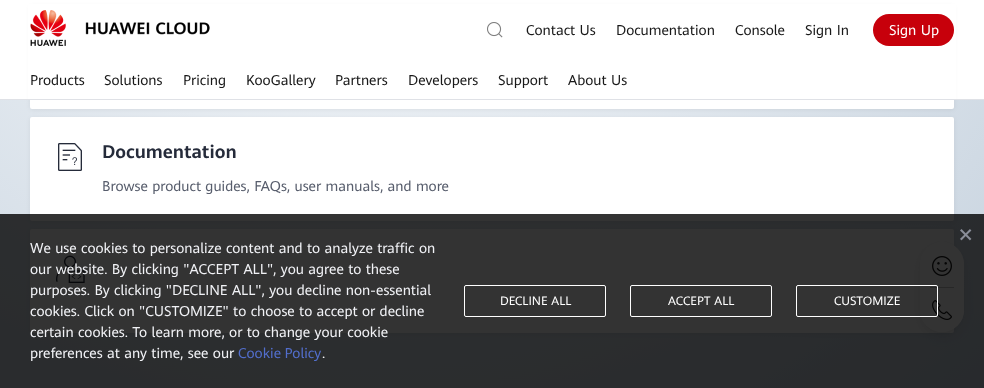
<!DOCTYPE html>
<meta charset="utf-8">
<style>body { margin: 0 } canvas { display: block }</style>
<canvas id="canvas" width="984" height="388"></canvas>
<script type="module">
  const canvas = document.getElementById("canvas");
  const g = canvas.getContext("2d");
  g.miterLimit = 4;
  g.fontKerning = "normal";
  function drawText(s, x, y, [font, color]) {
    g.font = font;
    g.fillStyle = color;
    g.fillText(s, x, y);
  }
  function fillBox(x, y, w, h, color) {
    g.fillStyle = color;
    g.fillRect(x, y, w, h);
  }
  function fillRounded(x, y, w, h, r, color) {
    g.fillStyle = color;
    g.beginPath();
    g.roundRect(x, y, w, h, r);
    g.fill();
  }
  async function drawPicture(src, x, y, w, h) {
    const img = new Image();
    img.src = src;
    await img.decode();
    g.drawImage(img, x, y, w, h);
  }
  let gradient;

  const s1 = ["14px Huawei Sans", "#191919"];
  const s2 = ["14px Huawei Sans", "#FFFFFF"];
  const s3 = ["bold 18px Huawei Sans", "#252B3A"];
  const s4 = ["14px Huawei Sans", "#575D6C"];
  const s5 = ["14px Huawei Sans", "#F1F2F6"];
  const s6 = ["14px Huawei Sans", "#526ECC"];
  const s7 = ["12px Huawei Sans", "#FFFFFF"];

  fillBox(0, 0, 984, 388, "#FFFFFF");
  gradient = g.createRadialGradient(364, -168.21, 0, 364, -168.21, 877);
  gradient.addColorStop(0, "#F9FBFD");
  gradient.addColorStop(1, "#C6D2DE");
  g.fillStyle = gradient;
  g.beginPath();
  g.rect(0, 100, 984, 288);
  g.save();
  g.clip();
  g.scale(1, 756 / 877);
  g.fillRect(0, 0, 984, 451);
  g.restore();
  g.fillStyle = "rgba(0, 0, 0, 0.06)";
  g.filter = "blur(2px)";
  g.beginPath();
  g.roundRect(30, 6, 924, 104, 2);
  g.fill();
  g.filter = "none";
  fillRounded(30, 5, 924, 104, 2, "#FFFFFF");
  fillBox(28, 4, 928, 95, "#FFFFFF");
  fillBox(0, 99, 984, 1, "#DFE1E6");
  await drawPicture("pic1.png", 30, 10, 180, 36);
  await drawPicture("pic2.png", 487, 22, 16, 16);
  drawText("Contact Us", 526, 35, s1);
  drawText("Documentation", 616, 35, s1);
  drawText("Console", 735, 35, s1);
  drawText("Sign In", 805, 35, s1);
  fillRounded(873, 14, 81, 32, 16, "#C7000B");
  drawText("Sign Up", 889, 35, s2);
  drawText("Products", 30, 85, s1);
  drawText("Solutions", 104, 85, s1);
  drawText("Pricing", 183, 85, s1);
  drawText("KooGallery", 246, 85, s1);
  drawText("Partners", 335, 85, s1);
  drawText("Developers", 408, 85, s1);
  drawText("Support", 498, 85, s1);
  drawText("About Us", 568, 85, s1);
  g.fillStyle = "rgba(0, 0, 0, 0.06)";
  g.filter = "blur(2px)";
  g.beginPath();
  g.roundRect(30, 118, 924, 104, 2);
  g.fill();
  g.filter = "none";
  fillRounded(30, 117, 924, 104, 2, "#FFFFFF");
  await drawPicture("pic3.png", 58, 143, 24, 28);
  drawText("Documentation", 102, 158, s3);
  drawText("Browse product guides, FAQs, user manuals, and more", 102, 191, s4);
  g.fillStyle = "rgba(0, 0, 0, 0.06)";
  g.filter = "blur(2px)";
  g.beginPath();
  g.roundRect(30, 230, 924, 104, 2);
  g.fill();
  g.filter = "none";
  fillRounded(30, 229, 924, 104, 2, "#FFFFFF");
  await drawPicture("pic4.png", 56, 255, 29, 28);
  g.fillStyle = "rgba(138, 141, 147, 0.2)";
  g.filter = "blur(5.5px)";
  g.beginPath();
  g.roundRect(920, 246, 44, 90, 22);
  g.fill();
  g.filter = "none";
  fillRounded(920, 242, 44, 90, 22, "#FFFFFF");
  g.beginPath();
  g.arc(942, 266, 22, 0, Math.PI * 2);
  g.fill();
  await drawPicture("pic6.png", 932, 256, 20, 20);
  fillBox(930, 287, 24, 1, "#C2C2C2");
  g.fillStyle = "#FFFFFF";
  g.beginPath();
  g.arc(942, 310, 22, 0, Math.PI * 2);
  g.fill();
  await drawPicture("pic7.png", 932, 300, 20, 20);
  fillBox(0, 214, 984, 174, "rgba(0, 0, 0, 0.8)");
  await drawPicture("pic5.png", 960, 229, 12, 12);
  drawText("We use cookies to personalize content and to analyze traffic on", 30, 253, s5);
  drawText("our website. By clicking \"ACCEPT ALL\", you agree to these", 30, 274, s5);
  drawText("purposes. By clicking \"DECLINE ALL\", you decline non-essential", 30, 295, s5);
  drawText("cookies. Click on \"CUSTOMIZE\" to choose to accept or decline", 30, 316, s5);
  drawText("certain cookies. To learn more, or to change your cookie", 30, 337, s5);
  drawText("preferences at any time, see our", 30, 358, s5);
  g.wordSpacing = "-1px";
  drawText("Cookie Policy", 238, 358, s6);
  g.wordSpacing = "0px";
  drawText(".", 322, 358, s5);
  g.beginPath();
  g.roundRect(464.5, 285.5, 141, 31, 1.5);
  g.strokeStyle = "#FFFFFF";
  g.stroke();
  drawText("DECLINE ALL", 500, 305, s7);
  g.beginPath();
  g.roundRect(630.5, 285.5, 141, 31, 1.5);
  g.stroke();
  drawText("ACCEPT ALL", 668, 305, s7);
  g.beginPath();
  g.roundRect(796.5, 285.5, 141, 31, 1.5);
  g.stroke();
  drawText("CUSTOMIZE", 834, 305, s7);
</script>
